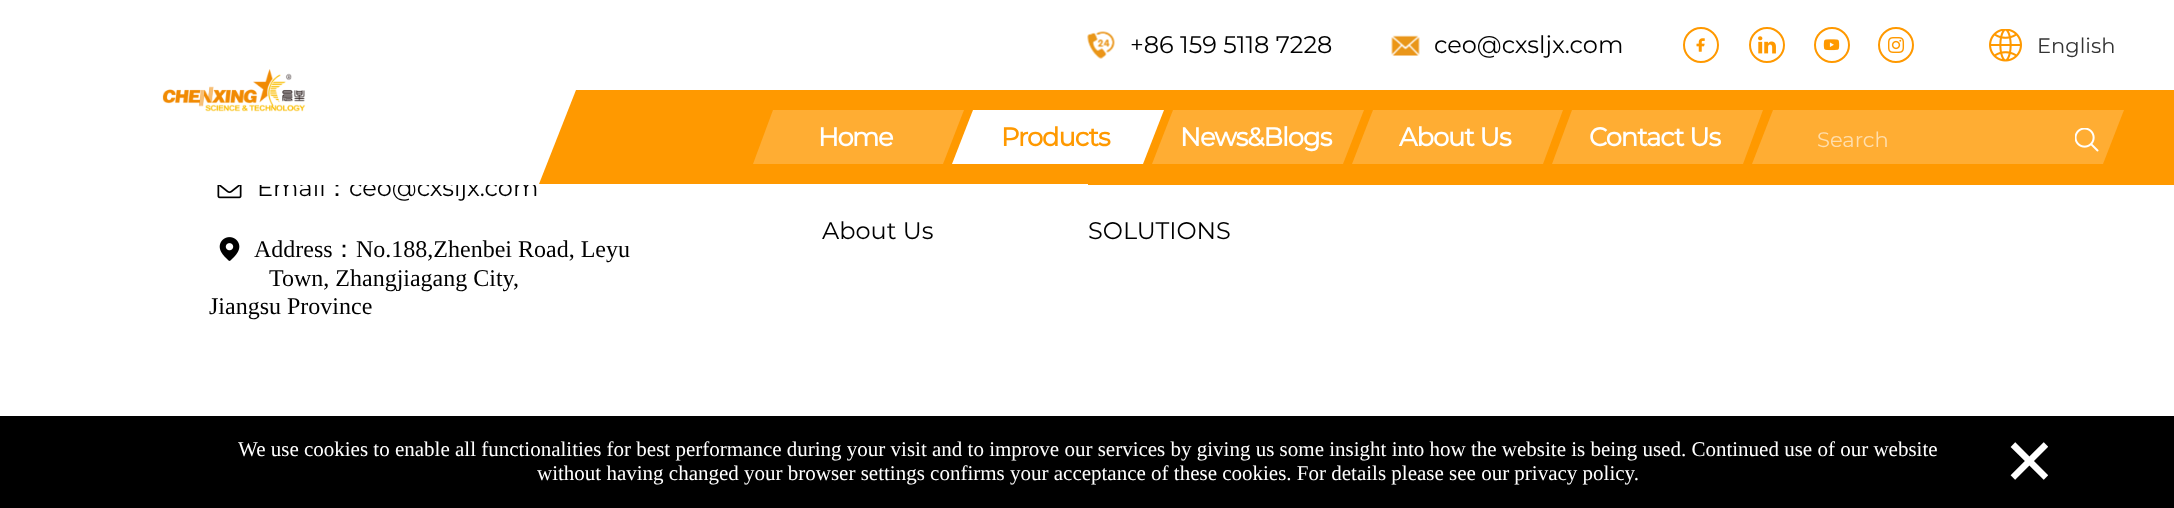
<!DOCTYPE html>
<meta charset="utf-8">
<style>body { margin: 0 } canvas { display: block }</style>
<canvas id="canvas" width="2174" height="508"></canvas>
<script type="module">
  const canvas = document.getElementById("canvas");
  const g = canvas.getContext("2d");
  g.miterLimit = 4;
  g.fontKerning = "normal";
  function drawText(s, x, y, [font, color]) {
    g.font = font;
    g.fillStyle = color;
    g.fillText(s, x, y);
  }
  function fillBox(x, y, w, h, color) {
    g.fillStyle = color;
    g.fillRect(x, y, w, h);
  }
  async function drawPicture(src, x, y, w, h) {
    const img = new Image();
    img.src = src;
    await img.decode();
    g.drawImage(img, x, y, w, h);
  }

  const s1 = ["100 24px Montserrat", "#000000"];
  const s2 = ["500 24px WenQuanYi Zen Hei", "#000000"];
  const s3 = ["100 21px Montserrat", "#333333"];
  const s4 = ["bold 25.75px Montserrat", "#FFFFFF"];
  const s5 = ["bold 25.75px Montserrat", "#FF9900"];
  const s6 = ["100 21px Montserrat", "#FFDEAD"];
  const s7 = ["24px Liberation Serif", "#000000"];
  const s8 = ["21px Liberation Serif", "#FFFFFF"];
  const s9 = ["bold 90px Liberation Serif", "#FFFFFF"];

  fillBox(0, 0, 2174, 508, "#FFFFFF");
  drawText("Email", 257, 196, s1);
  drawText("：", 325, 196, s2);
  drawText("ceo@cxsljx.com", 349, 196, s1);
  fillBox(259, 178, 276, 7, "#FFFFFF");
  await drawPicture("pic1.png", 1087, 31, 28, 28);
  drawText("+86 159 5118 7228", 1130, 53, s1);
  await drawPicture("pic2.png", 1391, 35, 29, 21);
  drawText("ceo@cxsljx.com", 1434, 53, s1);
  g.beginPath();
  g.arc(1701, 45, 17, 0, Math.PI * 2);
  g.strokeStyle = "#FF9900";
  g.lineWidth = 2;
  g.stroke();
  await drawPicture("pic3.png", 1696, 38, 9, 14);
  g.beginPath();
  g.arc(1767, 45, 17, 0, Math.PI * 2);
  g.stroke();
  await drawPicture("pic4.png", 1758, 36, 18, 18);
  g.beginPath();
  g.arc(1832, 45, 17, 0, Math.PI * 2);
  g.stroke();
  await drawPicture("pic5.png", 1823, 39, 17, 12);
  g.beginPath();
  g.arc(1896, 45, 17, 0, Math.PI * 2);
  g.stroke();
  await drawPicture("pic6.png", 1888, 37, 17, 16);
  await drawPicture("pic7.png", 1989, 29, 33, 33);
  drawText("English", 2037, 53, s3);
  await drawPicture("pic8.png", 162, 69, 144, 43);
  fillBox(1088, 90, 1086, 95, "#FF9900");
  g.beginPath();
  g.moveTo(576, 90);
  g.lineTo(1781, 90);
  g.lineTo(1744, 184);
  g.lineTo(539, 184);
  g.closePath();
  g.fill();
  g.fillStyle = "#FFAD33";
  g.beginPath();
  g.moveTo(773, 110);
  g.lineTo(964, 110);
  g.lineTo(943, 164);
  g.lineTo(753, 164);
  g.closePath();
  g.fill();
  g.letterSpacing = "-1.5px";
  drawText("Home", 818, 146, s4);
  g.beginPath();
  g.moveTo(973, 110);
  g.lineTo(1164, 110);
  g.lineTo(1143, 164);
  g.lineTo(952, 164);
  g.closePath();
  g.fill();
  g.letterSpacing = "-1px";
  drawText("Products", 1001, 146, s5);
  g.fillStyle = "#FFAD33";
  g.beginPath();
  g.moveTo(1173, 110);
  g.lineTo(1364, 110);
  g.lineTo(1343, 164);
  g.lineTo(1152, 164);
  g.closePath();
  g.fill();
  drawText("News&Blogs", 1180, 146, s4);
  g.fillStyle = "#FFAD33";
  g.beginPath();
  g.moveTo(1373, 110);
  g.lineTo(1563, 110);
  g.lineTo(1543, 164);
  g.lineTo(1352, 164);
  g.closePath();
  g.fill();
  drawText("About Us", 1399, 146, s4);
  g.fillStyle = "#FFAD33";
  g.beginPath();
  g.moveTo(1572, 110);
  g.lineTo(1763, 110);
  g.lineTo(1743, 164);
  g.lineTo(1552, 164);
  g.closePath();
  g.fill();
  drawText("Contact Us", 1589, 146, s4);
  g.fillStyle = "#FFAD33";
  g.beginPath();
  g.moveTo(1773, 110);
  g.lineTo(2124, 110);
  g.lineTo(2103, 164);
  g.lineTo(1752, 164);
  g.closePath();
  g.fill();
  g.letterSpacing = "0px";
  drawText("Search", 1817, 147, s6);
  await drawPicture("pic9.png", 2075, 128, 24, 24);
  await drawPicture("pic10.png", 217, 185, 25, 14);
  await drawPicture("pic11.png", 219, 237, 21, 24);
  drawText("Address", 254, 257, s7);
  drawText("：", 332, 257, s2);
  drawText("No.188,Zhenbei Road, Leyu", 356, 257, s7);
  drawText("Town, Zhangjiagang City,", 269, 286, s7);
  drawText("Jiangsu Province", 209, 314, s7);
  drawText("About Us", 822, 239, s1);
  drawText("SOLUTIONS", 1088, 239, s1);
  fillBox(0, 416, 2174, 92, "#000000");
  drawText("We use cookies to enable all functionalities for best performance during your visit and to improve our services by giving us some insight into how the website is being used. Continued use of our website", 238, 456, s8);
  drawText("without having changed your browser settings confirms your acceptance of these cookies. For details please see our privacy policy.", 537, 480, s8);
  drawText("×", 2004, 491, s9);
</script>
